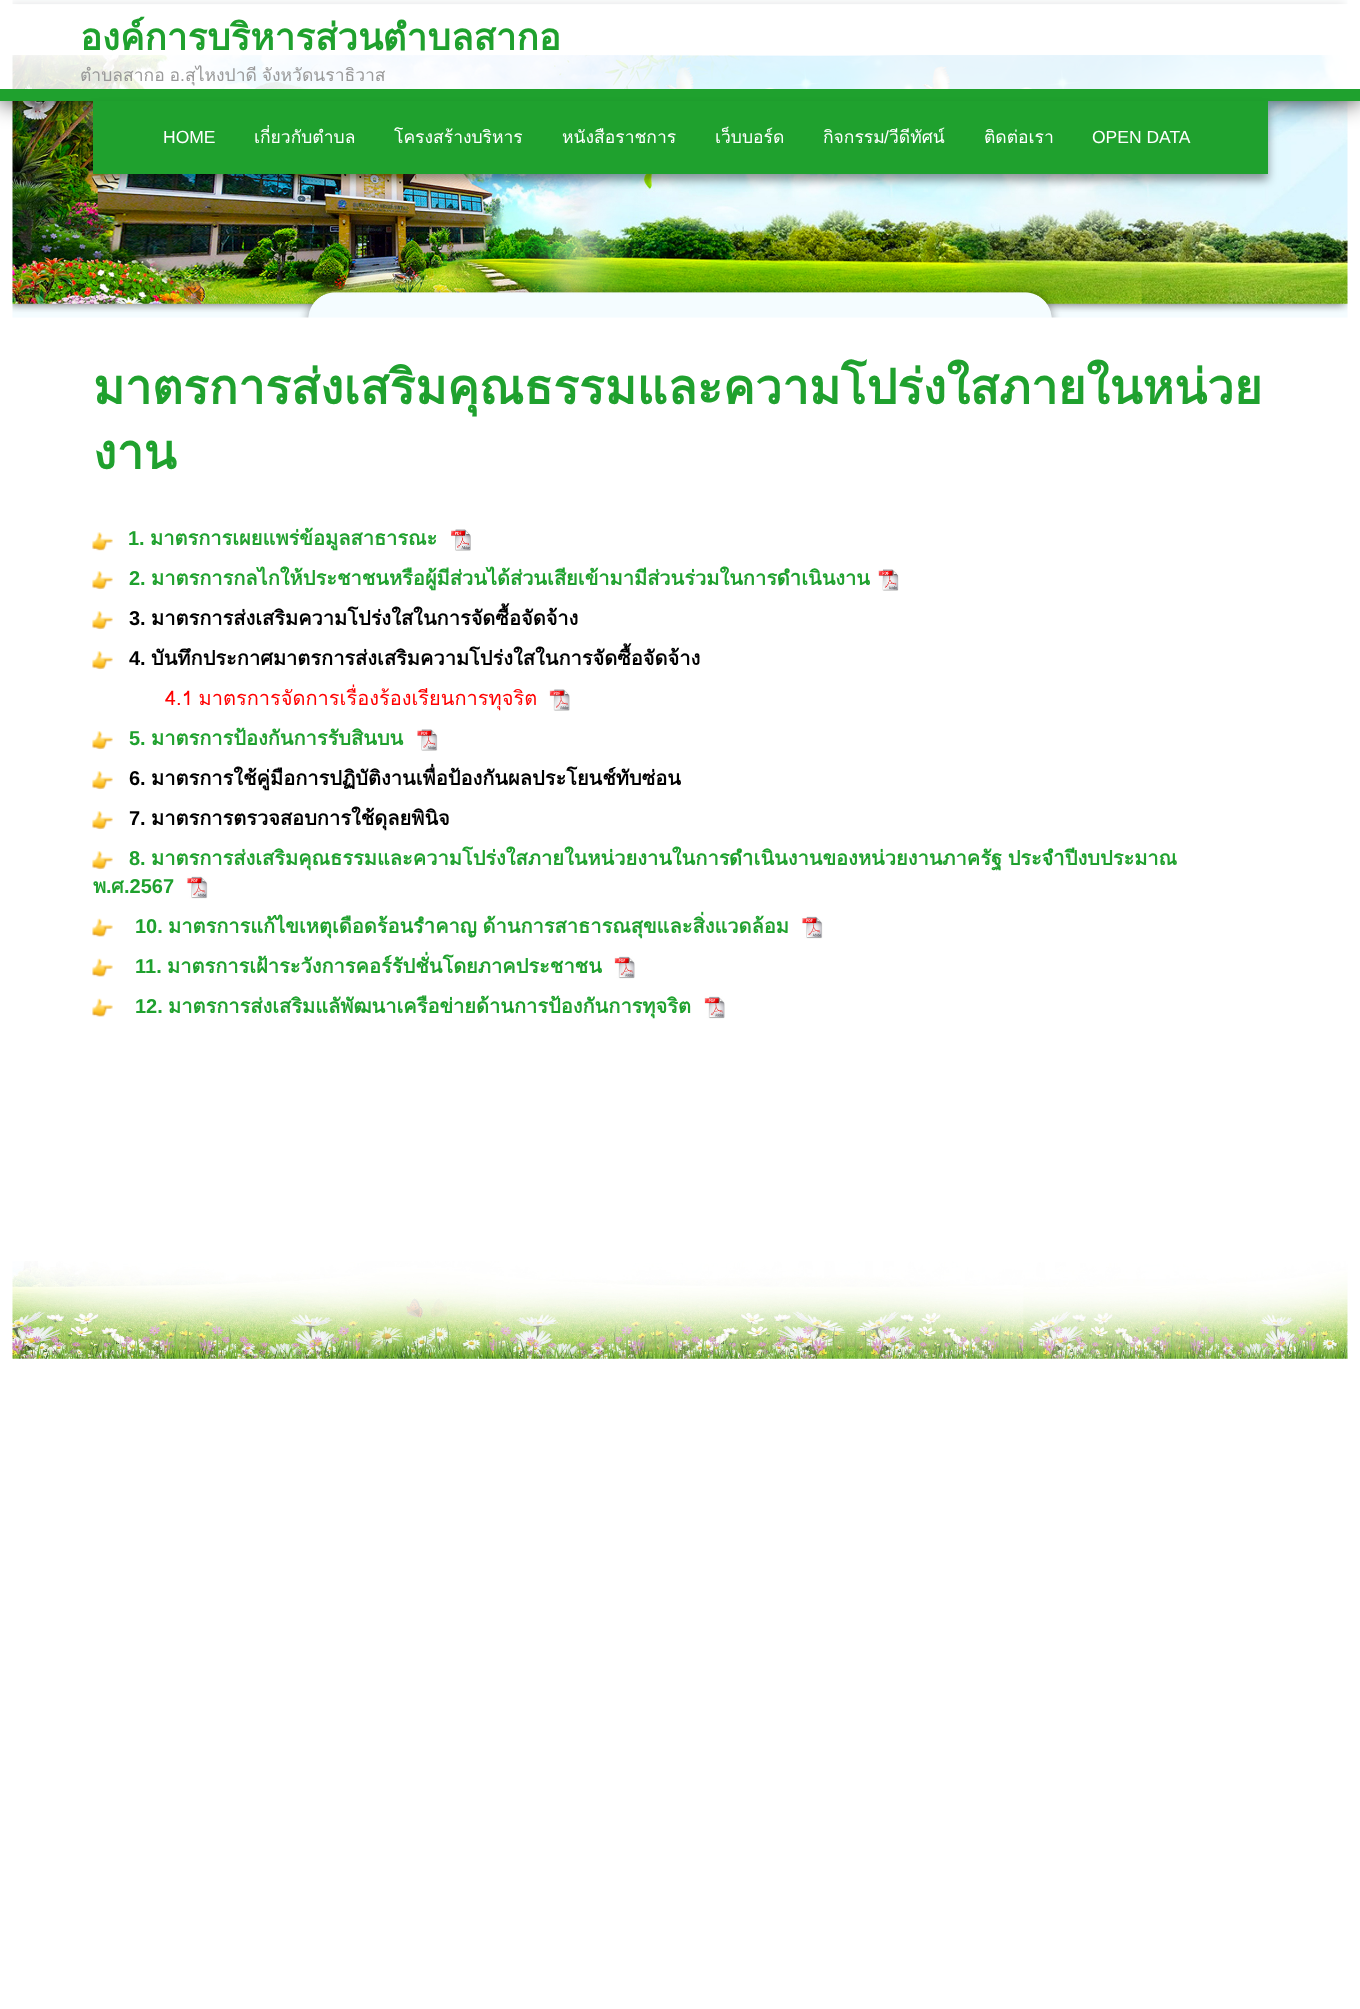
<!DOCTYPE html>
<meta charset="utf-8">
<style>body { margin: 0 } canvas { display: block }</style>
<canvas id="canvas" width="1360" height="2009"></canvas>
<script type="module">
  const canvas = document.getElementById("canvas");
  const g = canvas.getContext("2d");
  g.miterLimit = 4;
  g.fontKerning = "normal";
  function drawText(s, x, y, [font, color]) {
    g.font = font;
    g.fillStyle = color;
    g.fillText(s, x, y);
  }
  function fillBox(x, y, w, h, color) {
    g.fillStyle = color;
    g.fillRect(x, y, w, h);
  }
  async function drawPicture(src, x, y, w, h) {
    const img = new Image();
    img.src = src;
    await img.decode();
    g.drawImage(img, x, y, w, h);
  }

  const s1 = ["bold 36.75px Loma", "#1FA12E"];
  const s2 = ["17.5px Loma", "#999999"];
  const s3 = ["17.5px Liberation Sans", "#999999"];
  const s4 = ["17.5px Liberation Sans", "#FFFFFF"];
  const s5 = ["17.5px Loma", "#FFFFFF"];
  const s6 = ["bold 48.1px Loma", "#1FA12E"];
  const s7 = ["bold 20px Liberation Sans", "#1FA12E"];
  const s8 = ["bold 20px Loma", "#1FA12E"];
  const s9 = ["bold 20px Liberation Sans", "#000000"];
  const s10 = ["bold 20px Loma", "#000000"];
  const s11 = ["20px Loma", "#FF0000"];

  fillBox(0, 0, 1360, 2009, "#FFFFFF");
  await drawPicture("pic1.png", 12, 0, 1336, 318);
  g.save();
  g.beginPath();
  g.moveTo(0, 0);
  g.lineTo(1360, 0);
  g.lineTo(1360, 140);
  g.lineTo(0, 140);
  g.closePath();
  g.moveTo(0, 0);
  g.lineTo(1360, 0);
  g.lineTo(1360, 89);
  g.lineTo(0, 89);
  g.closePath();
  g.clip("evenodd");
  g.fillStyle = "rgba(0, 0, 0, 0.8)";
  g.filter = "blur(12.5px)";
  g.beginPath();
  g.rect(0, 13, 1360, 88);
  g.fill();
  g.filter = "none";
  g.restore();
  fillBox(0, 0, 1360, 89, "rgba(255, 255, 255, 0.85)");
  drawText("องค์การบริหารส่วนตำบลสากอ", 80, 50, s1);
  g.wordSpacing = "-1px";
  drawText("ตำบลสากอ อ", 80, 81, s2);
  g.wordSpacing = "0px";
  drawText(".", 180, 81, s3);
  g.wordSpacing = "-1px";
  drawText("สุไหงปาดี จังหวัดนราธิวาส", 185, 81, s2);
  fillBox(0, 89, 1360, 12, "#1FA12E");
  g.fillStyle = "rgba(0, 0, 0, 0.4)";
  g.filter = "blur(5px)";
  g.beginPath();
  g.rect(93, 108, 1175, 72);
  g.fill();
  g.filter = "none";
  fillBox(93, 101, 1175, 73, "#1FA12E");
  g.wordSpacing = "0px";
  drawText("HOME", 163, 143, s4);
  drawText("เกี่ยวกับตำบล", 254, 143, s5);
  drawText("โครงสร้างบริหาร", 394, 143, s5);
  drawText("หนังสือราชการ", 562, 143, s5);
  drawText("เว็บบอร์ด", 715, 143, s5);
  drawText("กิจกรรม", 823, 143, s5);
  drawText("/", 884, 143, s4);
  drawText("วีดีทัศน์", 889, 143, s5);
  drawText("ติดต่อเรา", 984, 143, s5);
  drawText("OPEN DATA", 1092, 143, s4);
  drawText("มาตรการส่งเสริมคุณธรรมและความโปร่งใสภายในหน่วย", 93, 404, s6);
  drawText("งาน", 93, 469, s6);
  await drawPicture("pic2.png", 92, 532, 21, 19);
  drawText("1.", 128, 545, s7);
  drawText("มาตรการเผยแพร่ข้อมูลสาธารณะ", 150, 545, s8);
  await drawPicture("pic3.png", 451, 529, 20, 22);
  await drawPicture("pic4.png", 92, 571, 21, 19);
  drawText("2.", 129, 585, s7);
  drawText("มาตรการกลไกให้ประชาชนหรือผู้มีส่วนได้ส่วนเสียเข้ามามีส่วนร่วมในการดำเนินงาน", 151, 585, s8);
  await drawPicture("pic5.png", 878, 569, 21, 22);
  await drawPicture("pic4.png", 92, 611, 21, 19);
  drawText("3.", 129, 625, s9);
  drawText("มาตรการส่งเสริมความโปร่งใสในการจัดซื้อจัดจ้าง", 151, 625, s10);
  await drawPicture("pic4.png", 92, 651, 21, 19);
  drawText("4.", 129, 665, s9);
  drawText("บันทึกประกาศมาตรการส่งเสริมความโปร่งใสในการจัดซื้อจัดจ้าง", 151, 665, s10);
  g.wordSpacing = "-1px";
  drawText("4.1 มาตรการจัดการเรื่องร้องเรียนการทุจริต", 165, 705, s11);
  await drawPicture("pic6.png", 549, 689, 21, 22);
  await drawPicture("pic4.png", 92, 731, 21, 19);
  g.wordSpacing = "0px";
  drawText("5.", 129, 745, s7);
  drawText("มาตรการป้องกันการรับสินบน", 151, 745, s8);
  await drawPicture("pic7.png", 417, 729, 21, 22);
  await drawPicture("pic4.png", 92, 771, 21, 19);
  drawText("6.", 129, 785, s9);
  drawText("มาตรการใช้คู่มือการปฏิบัติงานเพื่อป้องกันผลประโยนช์ทับซ่อน", 151, 785, s10);
  await drawPicture("pic4.png", 92, 811, 21, 19);
  drawText("7.", 129, 825, s9);
  drawText("มาตรการตรวจสอบการใช้ดุลยพินิจ", 151, 825, s10);
  await drawPicture("pic4.png", 92, 851, 21, 19);
  drawText("8.", 129, 865, s7);
  g.wordSpacing = "-1px";
  drawText("มาตรการส่งเสริมคุณธรรมและความโปร่งใสภายในหน่วยงานในการดำเนินงานของหน่วยงานภาครัฐ ประจำปีงบประมาณ", 151, 865, s8);
  g.wordSpacing = "0px";
  drawText("พ", 93, 893, s8);
  drawText(".", 106, 893, s7);
  drawText("ศ", 111, 893, s8);
  drawText(".2567", 124, 893, s7);
  await drawPicture("pic8.png", 186, 876, 22, 23);
  await drawPicture("pic9.png", 92, 918, 21, 19);
  drawText("10.", 135, 933, s7);
  g.wordSpacing = "-1px";
  drawText("มาตรการแก้ไขเหตุเดือดร้อนรำคาญ ด้านการสาธารณสุขและสิ่งแวดล้อม", 168, 933, s8);
  await drawPicture("pic8.png", 801, 916, 22, 23);
  await drawPicture("pic9.png", 92, 958, 21, 19);
  g.wordSpacing = "0px";
  drawText("11.", 135, 973, s7);
  drawText("มาตรการเฝ้าระวังการคอร์รัปชั่นโดยภาคประชาชน", 167, 973, s8);
  await drawPicture("pic10.png", 614, 956, 21, 23);
  await drawPicture("pic9.png", 92, 998, 21, 19);
  drawText("12.", 135, 1013, s7);
  drawText("มาตรการส่งเสริมแลัพัฒนาเครือข่ายด้านการป้องกันการทุจริต", 168, 1013, s8);
  await drawPicture("pic10.png", 704, 996, 21, 23);
  await drawPicture("pic11.png", 12, 1261, 1336, 98);
</script>
